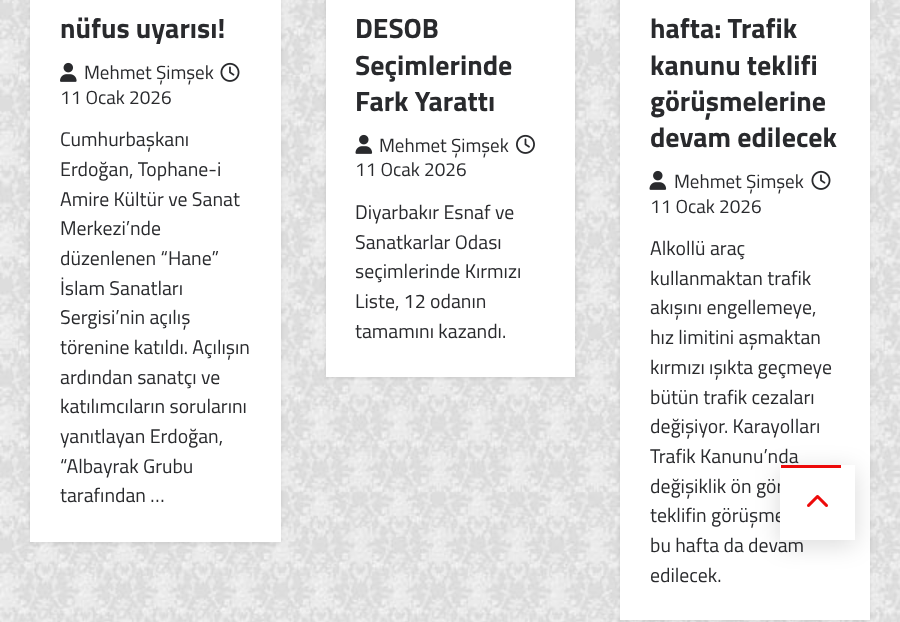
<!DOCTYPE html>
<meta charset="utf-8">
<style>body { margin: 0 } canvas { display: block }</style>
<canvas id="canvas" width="900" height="622"></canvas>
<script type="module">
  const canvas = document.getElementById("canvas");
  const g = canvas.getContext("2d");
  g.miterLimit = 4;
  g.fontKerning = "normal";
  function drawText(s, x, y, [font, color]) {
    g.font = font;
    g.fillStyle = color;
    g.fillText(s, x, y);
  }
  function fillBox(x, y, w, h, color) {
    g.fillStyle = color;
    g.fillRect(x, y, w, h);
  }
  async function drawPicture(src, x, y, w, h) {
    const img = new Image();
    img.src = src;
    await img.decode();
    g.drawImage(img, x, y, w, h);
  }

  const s1 = ["bold 28px Titillium Web", "#292A2D"];
  const s2 = ["19px Titillium Web", "#292A2D"];
  const s3 = ["19.75px Titillium Web", "#292A2D"];

  fillBox(0, 0, 900, 622, "#FFFFFF");
  await drawPicture("pic1.png", 0, 0, 900, 622);
  g.fillStyle = "rgba(10, 10, 10, 0.1)";
  g.filter = "blur(2px)";
  g.beginPath();
  g.rect(30, -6, 251, 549);
  g.fill();
  g.filter = "none";
  fillBox(30, 0, 251, 542, "#FFFFFF");
  drawText("nüfus uyarısı!", 60, 38, s1);
  await drawPicture("pic2.png", 60, 62, 17, 20);
  drawText("Mehmet Şimşek", 84, 79, s2);
  await drawPicture("pic3.png", 220, 62, 20, 20);
  drawText("11 Ocak 2026", 60, 104, s2);
  drawText("Cumhurbaşkanı", 60, 146, s3);
  drawText("Erdoğan, Tophane-i", 60, 176, s3);
  drawText("Amire Kültür ve Sanat", 60, 206, s3);
  drawText("Merkezi’nde", 60, 235, s3);
  drawText("düzenlenen “Hane”", 60, 265, s3);
  drawText("İslam Sanatları", 60, 295, s3);
  drawText("Sergisi’nin açılış", 60, 324, s3);
  drawText("törenine katıldı. Açılışın", 60, 354, s3);
  drawText("ardından sanatçı ve", 60, 384, s3);
  drawText("katılımcıların sorularını", 60, 413, s3);
  drawText("yanıtlayan Erdoğan,", 60, 443, s3);
  drawText("“Albayrak Grubu", 60, 473, s3);
  drawText("tarafından …", 60, 502, s3);
  g.fillStyle = "rgba(10, 10, 10, 0.1)";
  g.filter = "blur(2px)";
  g.beginPath();
  g.rect(326, -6, 249, 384);
  g.fill();
  g.filter = "none";
  fillBox(326, 0, 249, 377, "#FFFFFF");
  drawText("DESOB", 355, 38, s1);
  drawText("Seçimlerinde", 355, 75, s1);
  drawText("Fark Yarattı", 355, 111, s1);
  await drawPicture("pic4.png", 355, 134, 18, 20);
  drawText("Mehmet Şimşek", 379, 152, s2);
  await drawPicture("pic5.png", 516, 134, 19, 20);
  drawText("11 Ocak 2026", 355, 176, s2);
  drawText("Diyarbakır Esnaf ve", 355, 219, s3);
  drawText("Sanatkarlar Odası", 355, 249, s3);
  drawText("seçimlerinde Kırmızı", 355, 278, s3);
  drawText("Liste, 12 odanın", 355, 308, s3);
  drawText("tamamını kazandı.", 355, 338, s3);
  g.fillStyle = "rgba(10, 10, 10, 0.1)";
  g.filter = "blur(2px)";
  g.beginPath();
  g.rect(620, -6, 250, 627);
  g.fill();
  g.filter = "none";
  fillBox(620, 0, 250, 620, "#FFFFFF");
  drawText("hafta: Trafik", 650, 38, s1);
  drawText("kanunu teklifi", 650, 75, s1);
  drawText("görüşmelerine", 650, 111, s1);
  drawText("devam edilecek", 650, 147, s1);
  await drawPicture("pic4.png", 649, 170, 18, 20);
  drawText("Mehmet Şimşek", 674, 188, s2);
  await drawPicture("pic3.png", 811, 170, 20, 20);
  drawText("11 Ocak 2026", 650, 213, s2);
  drawText("Alkollü araç", 650, 255, s3);
  drawText("kullanmaktan trafik", 650, 285, s3);
  drawText("akışını engellemeye,", 650, 314, s3);
  drawText("hız limitini aşmaktan", 650, 344, s3);
  drawText("kırmızı ışıkta geçmeye", 650, 374, s3);
  drawText("bütün trafik cezaları", 650, 404, s3);
  drawText("değişiyor. Karayolları", 650, 433, s3);
  drawText("Trafik Kanunu’nda", 650, 463, s3);
  drawText("değişiklik ön gör", 650, 493, s3);
  drawText("teklifin görüşme", 650, 522, s3);
  drawText("bu hafta da devam", 650, 552, s3);
  drawText("edilecek.", 650, 582, s3);
  g.fillStyle = "rgba(10, 10, 10, 0.15)";
  g.filter = "blur(12px)";
  g.beginPath();
  g.rect(780, 470, 75, 75);
  g.fill();
  g.filter = "none";
  fillBox(780, 465, 75, 75, "#FFFFFF");
  fillBox(781, 465, 60, 3, "#ED0A0A");
  await drawPicture("pic6.png", 807, 495, 21, 12);
</script>
